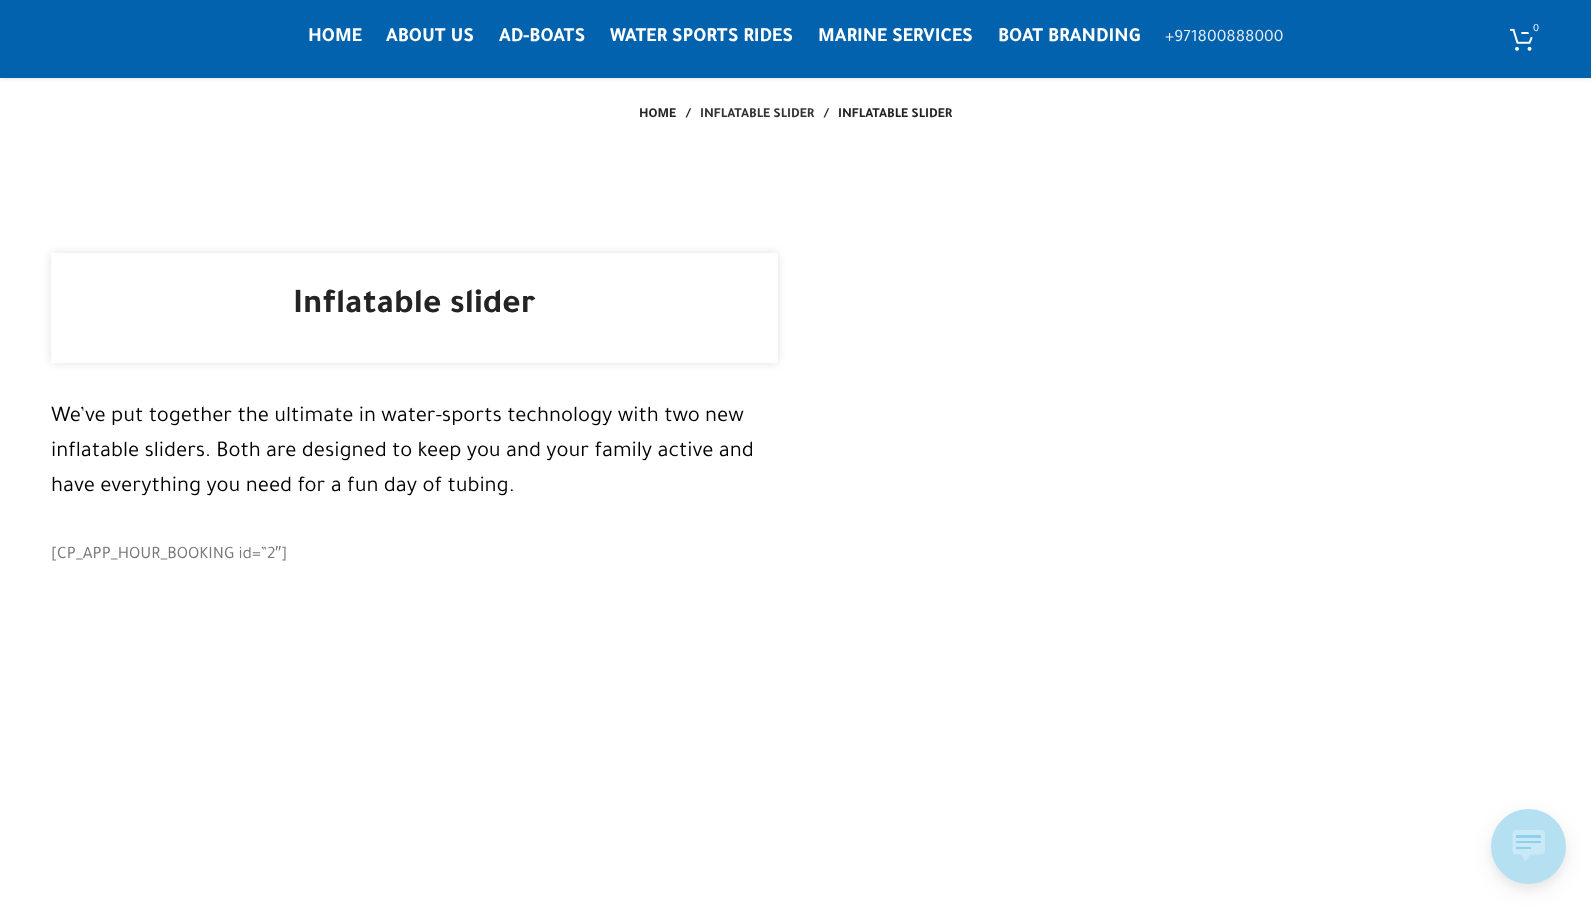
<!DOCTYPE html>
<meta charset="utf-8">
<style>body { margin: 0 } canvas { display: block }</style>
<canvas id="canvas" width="1591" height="908"></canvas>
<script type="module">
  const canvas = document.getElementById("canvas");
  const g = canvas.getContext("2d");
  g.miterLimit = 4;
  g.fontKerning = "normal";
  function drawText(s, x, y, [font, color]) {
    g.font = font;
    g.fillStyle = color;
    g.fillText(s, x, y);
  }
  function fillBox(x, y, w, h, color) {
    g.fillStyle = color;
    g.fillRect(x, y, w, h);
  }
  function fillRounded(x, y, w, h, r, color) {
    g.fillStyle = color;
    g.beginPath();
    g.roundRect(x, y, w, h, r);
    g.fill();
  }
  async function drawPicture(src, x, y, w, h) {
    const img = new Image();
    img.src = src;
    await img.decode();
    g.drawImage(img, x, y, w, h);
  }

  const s1 = ["bold 20px Tajawal", "#FFFFFF"];
  const s2 = ["17.5px Tajawal", "#E6EFF7"];
  const s3 = ["11px Tajawal", "#FFFFFF"];
  const s4 = ["bold 13.75px Tajawal", "#242424"];
  const s5 = ["bold 13.75px Tajawal", "#333333"];
  const s6 = ["bold 35px Tajawal", "#242424"];
  const s7 = ["22.5px Tajawal", "#000000"];
  const s8 = ["17.5px Tajawal", "#777777"];
  const s9 = ["17.5px Liberation Sans", "#777777"];

  fillBox(0, 0, 1591, 908, "#FFFFFF");
  g.fillStyle = "rgba(0, 0, 0, 0.1)";
  g.filter = "blur(2px)";
  g.beginPath();
  g.rect(0, 1, 1591, 78);
  g.fill();
  g.filter = "none";
  fillBox(0, 0, 1591, 78, "#0362AD");
  drawText("HOME", 308, 41, s1);
  drawText("ABOUT US", 386, 41, s1);
  drawText("AD-BOATS", 499, 41, s1);
  drawText("WATER SPORTS RIDES", 610, 41, s1);
  drawText("MARINE SERVICES", 818, 41, s1);
  drawText("BOAT BRANDING", 998, 41, s1);
  drawText("+971800888000", 1165, 41, s2);
  await drawPicture("pic1.png", 1510, 28, 23, 23);
  fillRounded(1528, 20, 18, 19, 9, "#0362AD");
  drawText("0", 1533, 31, s3);
  drawText("HOME", 639, 117, s4);
  drawText("/", 686, 117, s4);
  drawText("INFLATABLE SLIDER", 700, 117, s5);
  drawText("/", 824, 117, s4);
  drawText("INFLATABLE SLIDER", 838, 117, s4);
  g.save();
  g.beginPath();
  g.moveTo(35, 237);
  g.lineTo(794, 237);
  g.lineTo(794, 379);
  g.lineTo(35, 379);
  g.closePath();
  g.moveTo(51, 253);
  g.lineTo(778, 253);
  g.lineTo(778, 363);
  g.lineTo(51, 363);
  g.closePath();
  g.clip("evenodd");
  g.fillStyle = "rgba(0, 0, 0, 0.12)";
  g.filter = "blur(5px)";
  g.beginPath();
  g.rect(51, 253, 727, 110);
  g.fill();
  g.filter = "none";
  g.restore();
  drawText("Inflatable slider", 293, 312, s6);
  drawText("We’ve put together the ultimate in water-sports technology with two new", 51, 421, s7);
  drawText("inflatable sliders. Both are designed to keep you and your family active and", 51, 456, s7);
  drawText("have everything you need for a fun day of tubing.", 51, 491, s7);
  drawText("[CP_APP_HOUR_BOOKING id=”2", 51, 558, s8);
  drawText("″", 275, 558, s9);
  drawText("]", 281, 558, s8);
  g.fillStyle = "rgba(179, 179, 179, 0.19)";
  g.filter = "blur(12.5px)";
  g.beginPath();
  g.roundRect(1491, 816, 75, 75, 37.5);
  g.fill();
  g.filter = "none";
  g.fillStyle = "rgba(179, 179, 179, 0.2)";
  g.filter = "blur(5px)";
  g.beginPath();
  g.roundRect(1491, 814, 75, 75, 37.5);
  g.fill();
  g.filter = "none";
  g.fillStyle = "#B4E0F2";
  g.beginPath();
  g.arc(1528.5, 846.5, 37.5, 0, Math.PI * 2);
  g.fill();
  await drawPicture("pic2.png", 1512, 830, 33, 32);
</script>
